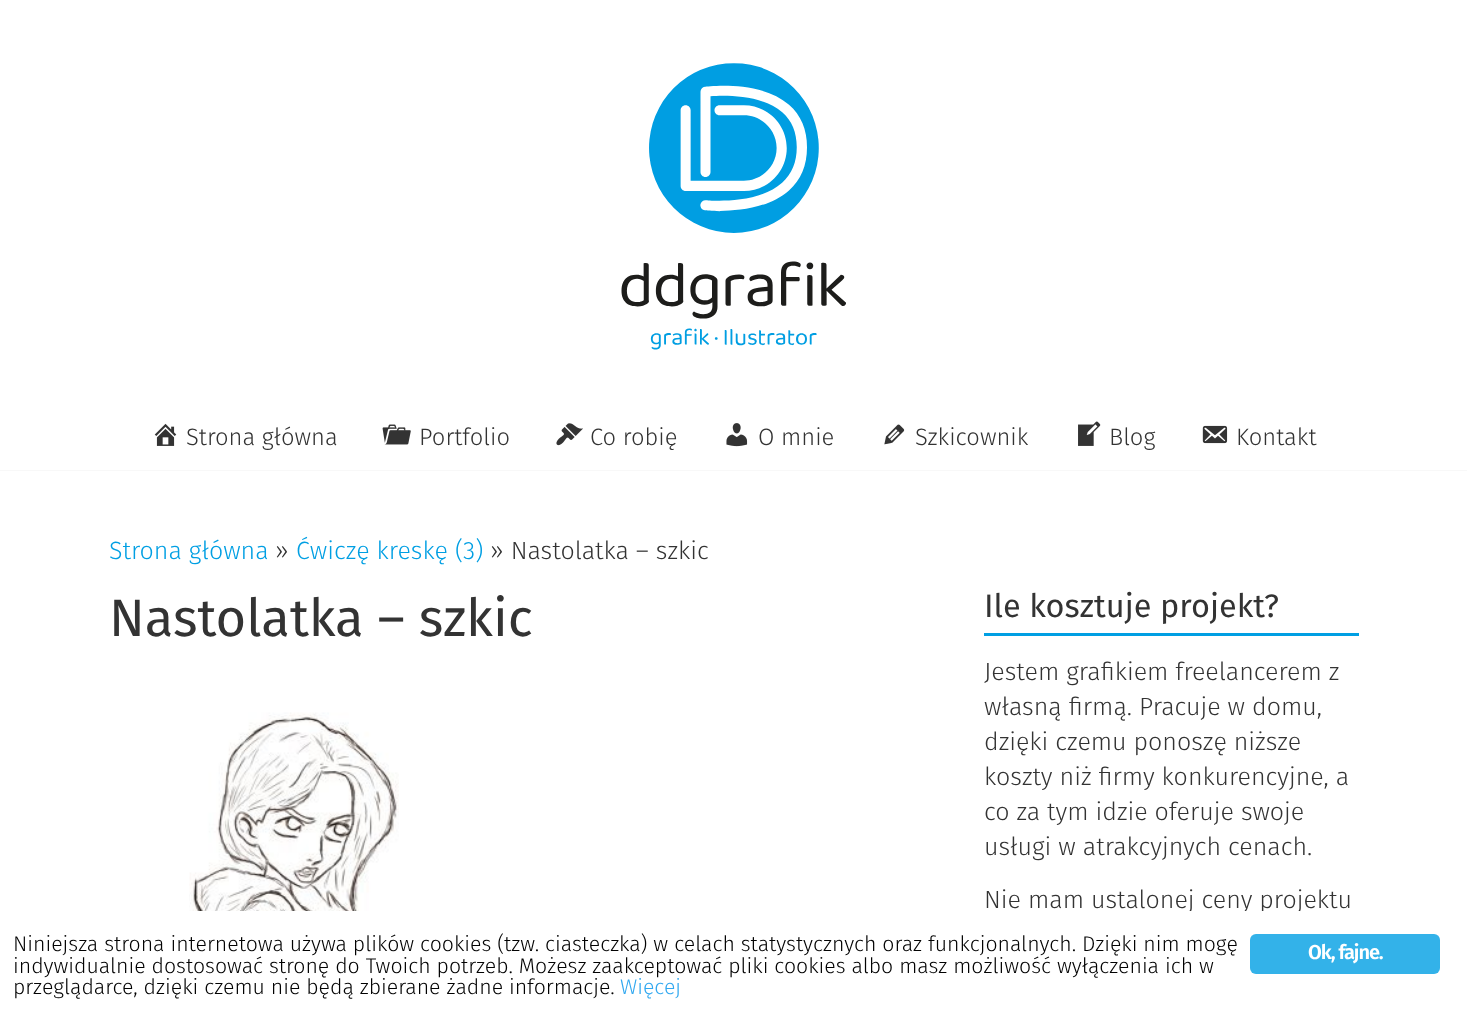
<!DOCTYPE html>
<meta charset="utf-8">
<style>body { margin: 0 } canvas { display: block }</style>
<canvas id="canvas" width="1467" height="1010"></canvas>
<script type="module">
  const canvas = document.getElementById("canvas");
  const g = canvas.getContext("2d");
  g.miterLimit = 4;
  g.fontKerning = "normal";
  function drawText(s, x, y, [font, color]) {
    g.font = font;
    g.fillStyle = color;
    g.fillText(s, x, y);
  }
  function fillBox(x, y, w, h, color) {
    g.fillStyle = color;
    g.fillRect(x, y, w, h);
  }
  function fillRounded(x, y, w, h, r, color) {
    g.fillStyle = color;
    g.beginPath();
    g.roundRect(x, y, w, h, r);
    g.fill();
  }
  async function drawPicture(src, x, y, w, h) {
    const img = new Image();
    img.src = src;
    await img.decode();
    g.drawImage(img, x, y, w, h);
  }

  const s1 = ["300 23.75px Fira Sans", "#333333"];
  const s2 = ["300 25px Fira Sans", "#009FE3"];
  const s3 = ["300 25px Fira Sans", "#333333"];
  const s4 = ["52.5px Fira Sans", "#333333"];
  const s5 = ["32.5px Fira Sans", "#333333"];
  const s6 = ["300 21.25px Fira Sans", "#020202"];
  const s7 = ["300 21.25px Fira Sans", "#31A8F0"];
  const s8 = ["600 20px Fira Sans", "#FFFFFF"];

  fillBox(0, 0, 1467, 1010, "#FFFFFF");
  await drawPicture("pic1.png", 621, 63, 225, 287);
  fillBox(0, 470, 1467, 1, "#F8F8F8");
  await drawPicture("pic2.png", 154, 423, 23, 23);
  drawText("Strona główna", 186, 445, s1);
  await drawPicture("pic3.png", 382, 424, 29, 21);
  drawText("Portfolio", 419, 445, s1);
  await drawPicture("pic4.png", 556, 423, 27, 23);
  drawText("Co robię", 590, 445, s1);
  await drawPicture("pic5.png", 726, 423, 22, 24);
  drawText("O mnie", 758, 445, s1);
  await drawPicture("pic6.png", 884, 424, 21, 21);
  drawText("Szkicownik", 915, 445, s1);
  await drawPicture("pic7.png", 1078, 421, 23, 25);
  drawText("Blog", 1109, 445, s1);
  await drawPicture("pic8.png", 1202, 425, 26, 19);
  drawText("Kontakt", 1236, 445, s1);
  drawText("Strona główna", 109, 559, s2);
  drawText("»", 275, 559, s3);
  drawText("Ćwiczę kreskę (3)", 296, 559, s2);
  drawText("» Nastolatka – szkic", 490, 559, s3);
  drawText("Nastolatka – szkic", 109, 636, s4);
  await drawPicture("pic9.png", 189, 712, 210, 199);
  fillBox(984, 633, 375, 3, "#009FE3");
  drawText("Ile kosztuje projekt?", 984, 617, s5);
  drawText("Jestem grafikiem freelancerem z", 984, 680, s3);
  drawText("własną firmą. Pracuje w domu,", 984, 715, s3);
  drawText("dzięki czemu ponoszę niższe", 984, 750, s3);
  drawText("koszty niż firmy konkurencyjne, a", 984, 785, s3);
  drawText("co za tym idzie oferuje swoje", 984, 820, s3);
  drawText("usługi w atrakcyjnych cenach.", 984, 855, s3);
  drawText("Nie mam ustalonej ceny projektu", 984, 908, s3);
  fillBox(1187, 911, 113, 3, "#FFFFFF");
  drawText("Niniejsza strona internetowa używa plików cookies (tzw. ciasteczka) w celach statystycznych oraz funkcjonalnych. Dzięki nim mogę", 13, 951, s6);
  drawText("indywidualnie dostosować stronę do Twoich potrzeb. Możesz zaakceptować pliki cookies albo masz możliwość wyłączenia ich w", 13, 973, s6);
  drawText("przeglądarce, dzięki czemu nie będą zbierane żadne informacje.", 13, 994, s6);
  drawText("Więcej", 620, 994, s7);
  fillRounded(1250, 934, 190, 40, 6, "#33B2E9");
  g.letterSpacing = "-1px";
  drawText("Ok, fajne.", 1308, 959, s8);
</script>
